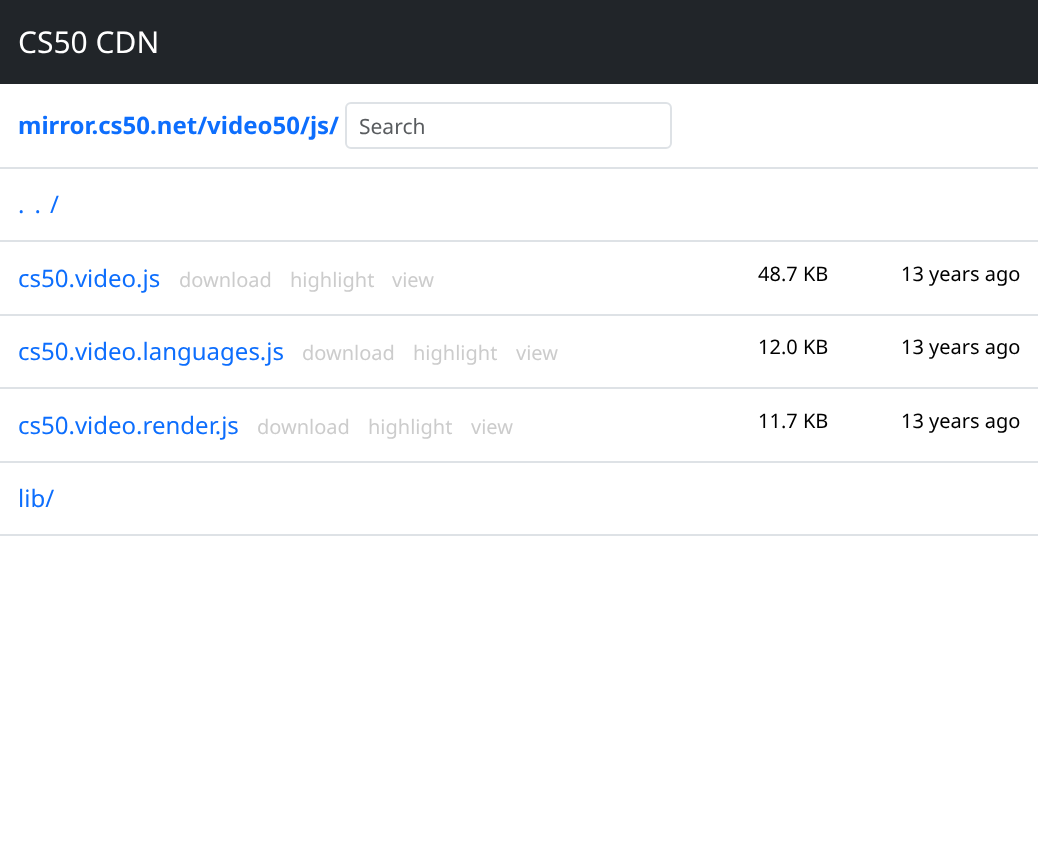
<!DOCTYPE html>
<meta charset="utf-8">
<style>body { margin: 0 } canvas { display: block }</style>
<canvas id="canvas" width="1038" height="844"></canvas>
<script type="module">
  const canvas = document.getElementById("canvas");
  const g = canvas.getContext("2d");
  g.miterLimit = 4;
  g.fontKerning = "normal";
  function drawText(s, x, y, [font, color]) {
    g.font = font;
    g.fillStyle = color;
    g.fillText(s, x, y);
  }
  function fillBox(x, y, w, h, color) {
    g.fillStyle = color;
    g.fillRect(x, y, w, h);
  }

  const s1 = ["30px Noto Sans", "#FFFFFF"];
  const s2 = ["bold 24px Noto Sans", "#0D6EFD"];
  const s3 = ["21px Noto Sans", "#595C5F"];
  const s4 = ["24px Noto Sans", "#0D6EFD"];
  const s5 = ["20px Noto Sans", "#CCCCCC"];
  const s6 = ["20px Noto Sans", "#000000"];

  fillBox(0, 0, 1038, 844, "#FFFFFF");
  fillBox(0, 0, 1038, 84, "#212529");
  drawText("CS50 CDN", 18, 53, s1);
  fillBox(0, 167, 1038, 2, "#DEE2E6");
  drawText("mirror.cs50.net/video50/js/", 18, 134, s2);
  g.beginPath();
  g.roundRect(346, 103, 325, 45, 5);
  g.strokeStyle = "#DEE2E6";
  g.lineWidth = 2;
  g.stroke();
  drawText("Search", 359, 134, s3);
  fillBox(0, 240, 1038, 2, "#DEE2E6");
  g.letterSpacing = "10px";
  drawText("..", 18, 213, s4);
  g.letterSpacing = "0px";
  drawText("/", 50, 213, s4);
  drawText("cs50.video.js", 18, 287, s4);
  drawText("download", 179, 287, s5);
  drawText("highlight", 290, 287, s5);
  drawText("view", 392, 287, s5);
  drawText("48.7 KB", 758, 281, s6);
  fillBox(0, 314, 1038, 2, "#DEE2E6");
  drawText("13 years ago", 901, 281, s6);
  drawText("cs50.video.languages.js", 18, 360, s4);
  drawText("download", 302, 360, s5);
  drawText("highlight", 413, 360, s5);
  drawText("view", 516, 360, s5);
  drawText("12.0 KB", 758, 354, s6);
  fillBox(0, 387, 1038, 2, "#DEE2E6");
  drawText("13 years ago", 901, 354, s6);
  drawText("cs50.video.render.js", 18, 434, s4);
  drawText("download", 257, 434, s5);
  drawText("highlight", 368, 434, s5);
  drawText("view", 471, 434, s5);
  drawText("11.7 KB", 758, 428, s6);
  fillBox(0, 461, 1038, 2, "#DEE2E6");
  drawText("13 years ago", 901, 428, s6);
  fillBox(0, 534, 1038, 2, "#DEE2E6");
  drawText("lib/", 18, 507, s4);
</script>
